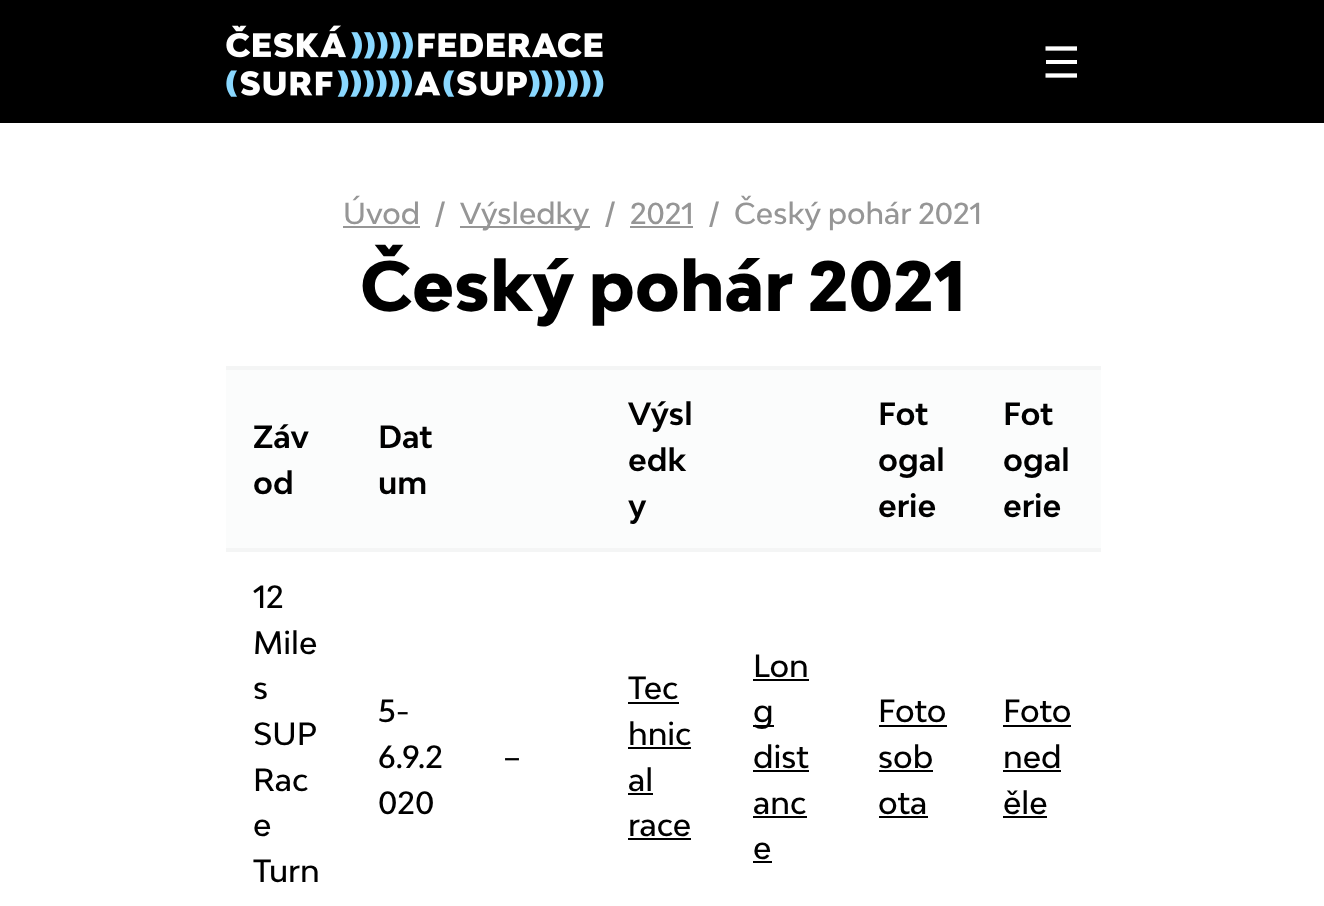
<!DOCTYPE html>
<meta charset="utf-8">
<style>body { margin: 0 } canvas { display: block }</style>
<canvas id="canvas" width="1324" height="906"></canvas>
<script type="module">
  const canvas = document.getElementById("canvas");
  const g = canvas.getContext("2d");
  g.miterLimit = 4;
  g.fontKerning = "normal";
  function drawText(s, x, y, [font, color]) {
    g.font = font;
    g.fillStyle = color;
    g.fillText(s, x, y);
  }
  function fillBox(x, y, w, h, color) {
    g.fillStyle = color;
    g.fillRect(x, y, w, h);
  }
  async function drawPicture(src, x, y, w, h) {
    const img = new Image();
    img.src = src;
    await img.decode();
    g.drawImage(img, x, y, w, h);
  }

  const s1 = ["500 28.75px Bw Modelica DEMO", "#969696"];
  const s2 = ["800 67.5px Bw Modelica DEMO", "#000000"];
  const s3 = ["bold 30.5px Bw Modelica DEMO", "#000000"];
  const s4 = ["500 30.5px Bw Modelica DEMO", "#000000"];

  fillBox(0, 0, 1324, 906, "#000000");
  await drawPicture("pic1.png", 226, 25, 378, 72);
  g.beginPath();
  g.moveTo(1077, 48.5);
  g.lineTo(1045.5, 48.5);
  g.strokeStyle = "#FFFFFF";
  g.lineWidth = 4.3;
  g.stroke();
  fillBox(1046, 60, 31, 4, "#FFFFFF");
  g.beginPath();
  g.moveTo(1077, 75.5);
  g.lineTo(1045.5, 75.5);
  g.stroke();
  fillBox(0, 123, 1324, 783, "#FFFFFF");
  drawText("Úvod", 343, 224, s1);
  fillBox(343, 226, 77, 2, "#969696");
  drawText("/", 434, 224, s1);
  fillBox(460, 226, 130, 2, "#969696");
  drawText("Výsledky", 460, 224, s1);
  drawText("/", 604, 224, s1);
  drawText("2021", 630, 224, s1);
  fillBox(630, 226, 63, 2, "#969696");
  drawText("/", 708, 224, s1);
  drawText("Český pohár 2021", 734, 224, s1);
  drawText("Český pohár 2021", 360, 311, s2);
  fillBox(226, 366, 875, 4, "#F4F5F5");
  fillBox(226, 370, 875, 178, "#FBFCFC");
  drawText("Záv", 253, 448, s3);
  drawText("od", 253, 494, s3);
  drawText("Dat", 378, 448, s3);
  drawText("um", 378, 494, s3);
  drawText("Výsl", 628, 425, s3);
  drawText("edk", 628, 471, s3);
  drawText("y", 628, 517, s3);
  drawText("Fot", 878, 425, s3);
  drawText("ogal", 878, 471, s3);
  drawText("erie", 878, 517, s3);
  fillBox(226, 548, 875, 4, "#F4F5F5");
  drawText("Fot", 1003, 425, s3);
  drawText("ogal", 1003, 471, s3);
  drawText("erie", 1003, 517, s3);
  drawText("12", 253, 608, s4);
  drawText("Mile", 253, 654, s4);
  drawText("s", 253, 699, s4);
  drawText("SUP", 253, 745, s4);
  drawText("Rac", 253, 791, s4);
  drawText("e", 253, 836, s4);
  drawText("Turn", 253, 882, s4);
  drawText("5-", 378, 722, s4);
  drawText("6.9.2", 378, 768, s4);
  drawText("020", 378, 814, s4);
  drawText("–", 503, 768, s4);
  drawText("Tec", 628, 699, s4);
  fillBox(628, 702, 51, 2, "#000000");
  drawText("hnic", 628, 745, s4);
  fillBox(628, 747, 63, 2, "#000000");
  drawText("al", 628, 791, s4);
  fillBox(628, 793, 25, 2, "#000000");
  drawText("race", 628, 836, s4);
  fillBox(628, 838, 63, 2, "#000000");
  drawText("Lon", 753, 677, s4);
  fillBox(753, 679, 56, 2, "#000000");
  fillBox(753, 725, 21, 2, "#000000");
  drawText("g", 753, 722, s4);
  drawText("dist", 753, 768, s4);
  fillBox(753, 770, 56, 2, "#000000");
  drawText("anc", 753, 814, s4);
  fillBox(753, 816, 54, 2, "#000000");
  drawText("e", 753, 859, s4);
  fillBox(753, 861, 19, 2, "#000000");
  drawText("Foto", 878, 722, s4);
  fillBox(879, 725, 68, 2, "#000000");
  drawText("sob", 878, 768, s4);
  fillBox(879, 770, 54, 2, "#000000");
  drawText("ota", 878, 814, s4);
  fillBox(879, 816, 49, 2, "#000000");
  drawText("Foto", 1003, 722, s4);
  fillBox(1003, 725, 68, 2, "#000000");
  drawText("ned", 1003, 768, s4);
  fillBox(1003, 770, 58, 2, "#000000");
  drawText("ěle", 1003, 814, s4);
  fillBox(1003, 816, 44, 2, "#000000");
</script>
